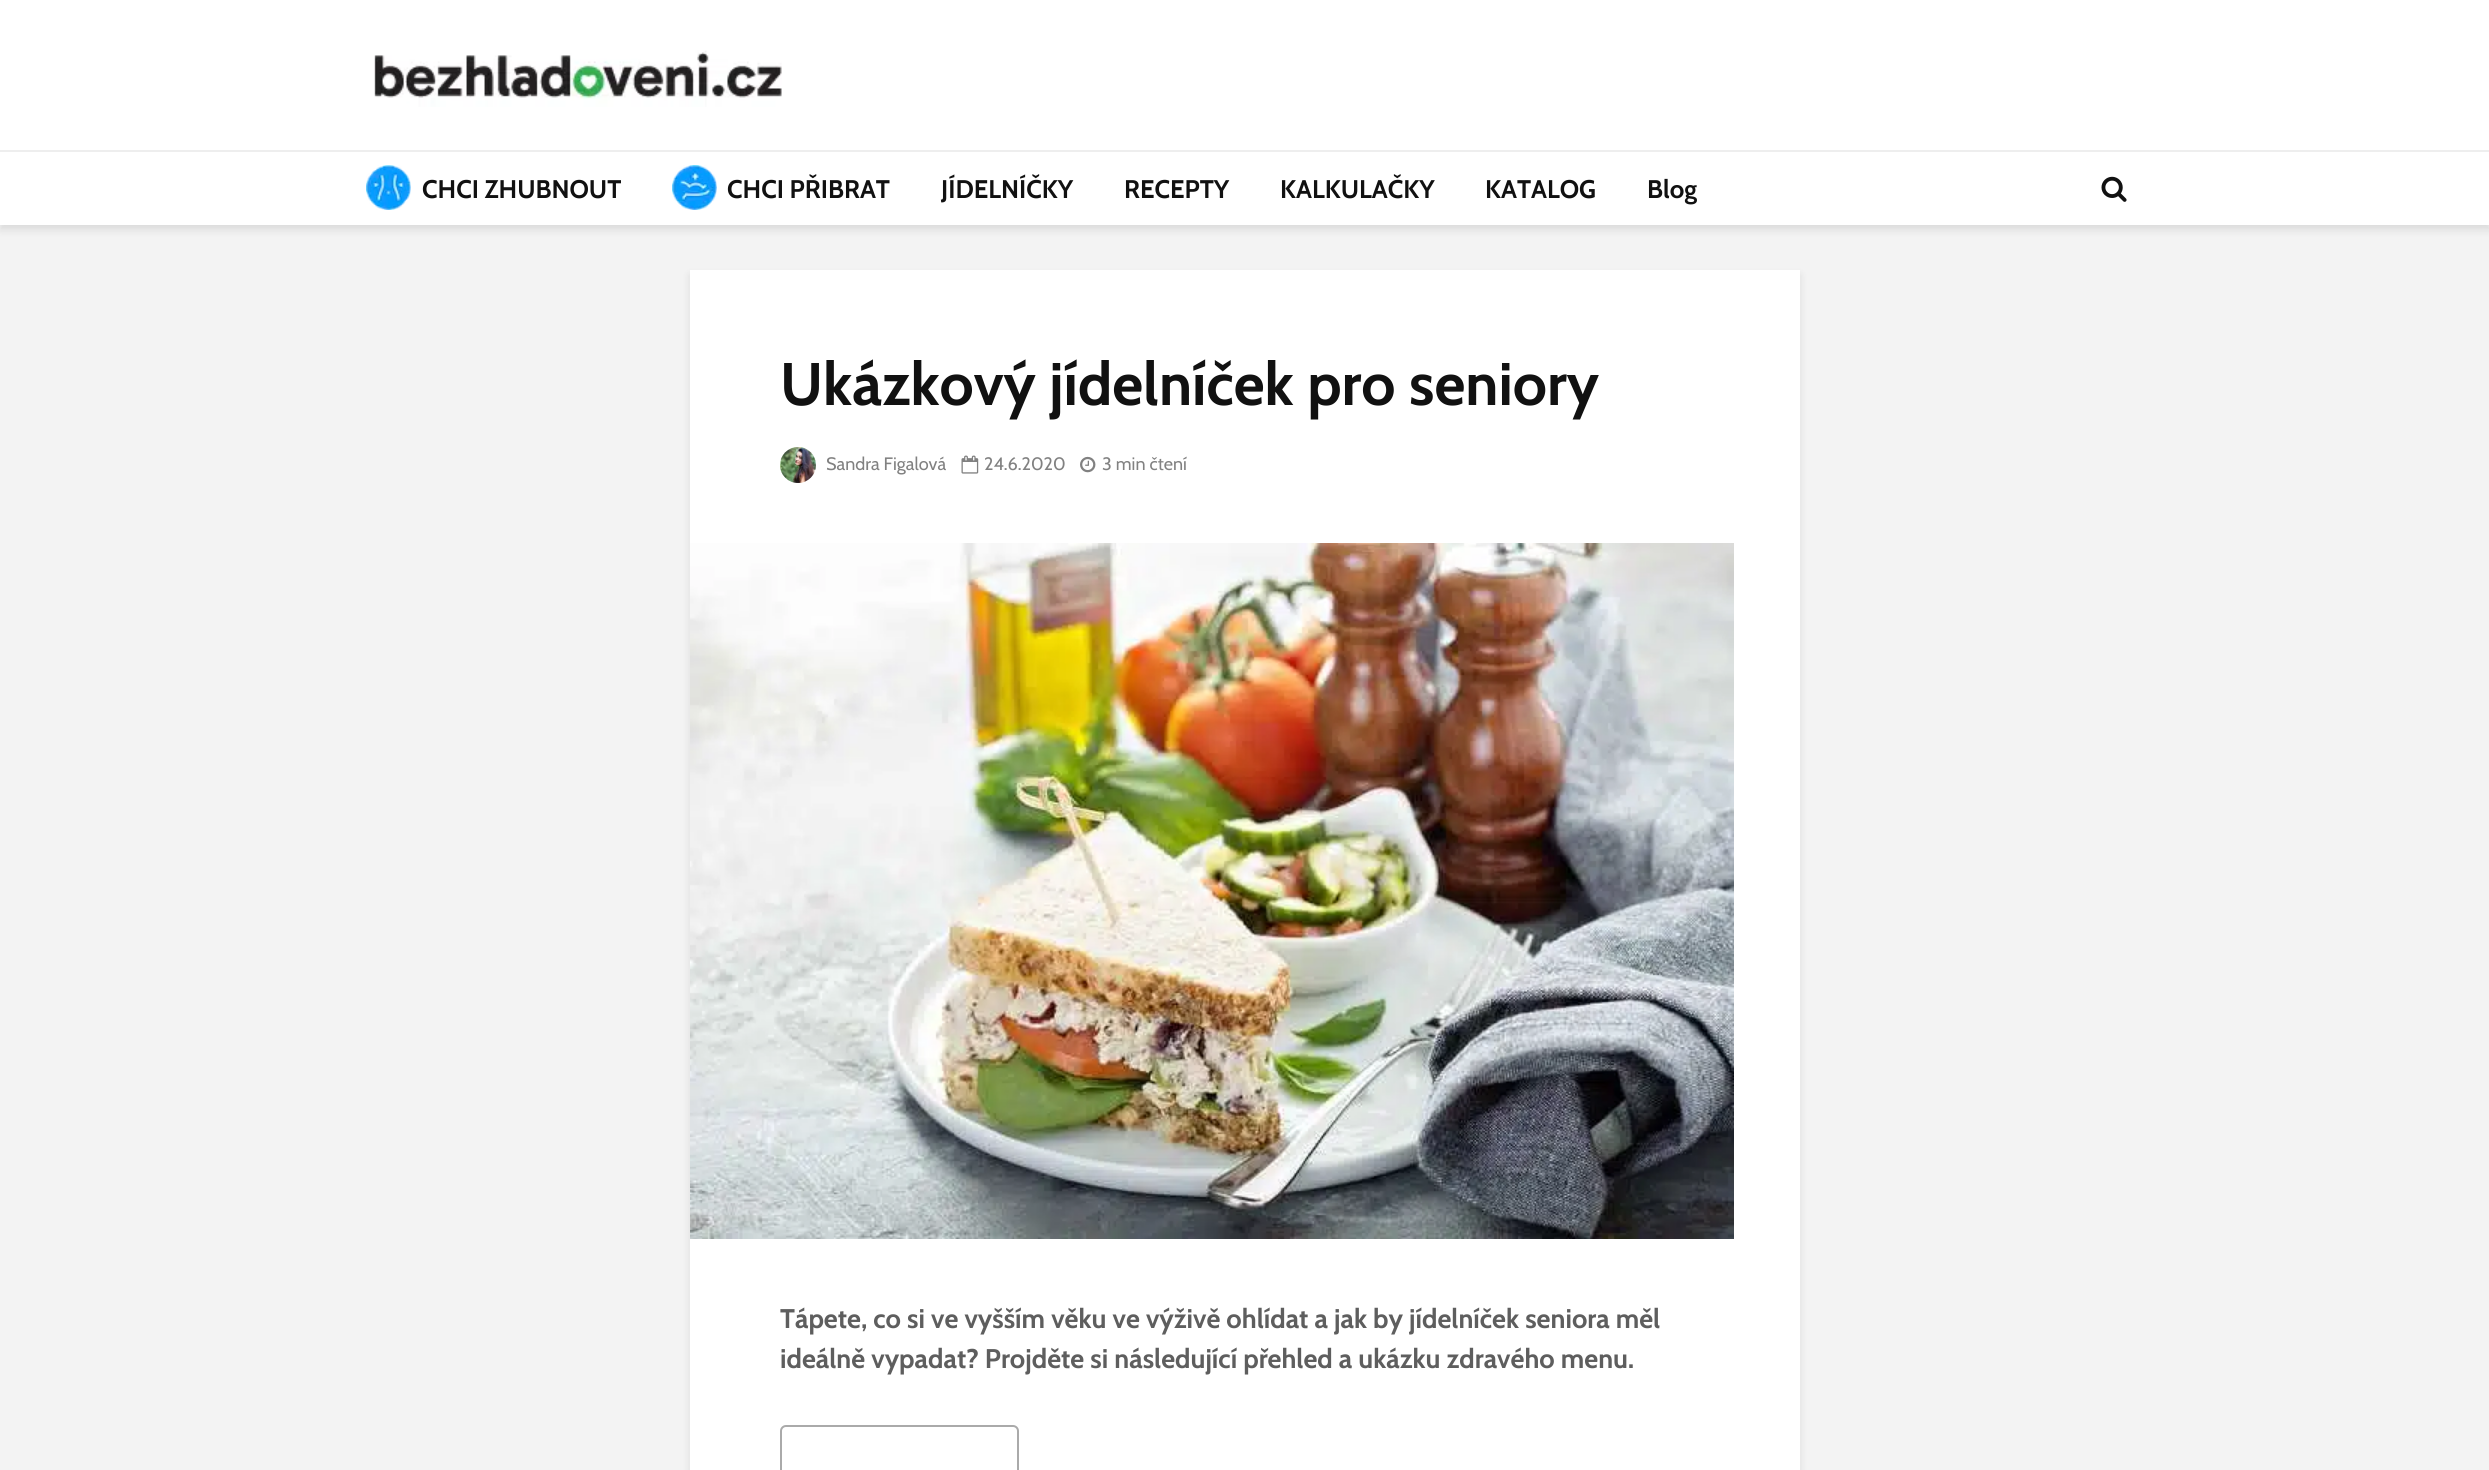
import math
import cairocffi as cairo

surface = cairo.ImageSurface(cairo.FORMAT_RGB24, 2489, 1470)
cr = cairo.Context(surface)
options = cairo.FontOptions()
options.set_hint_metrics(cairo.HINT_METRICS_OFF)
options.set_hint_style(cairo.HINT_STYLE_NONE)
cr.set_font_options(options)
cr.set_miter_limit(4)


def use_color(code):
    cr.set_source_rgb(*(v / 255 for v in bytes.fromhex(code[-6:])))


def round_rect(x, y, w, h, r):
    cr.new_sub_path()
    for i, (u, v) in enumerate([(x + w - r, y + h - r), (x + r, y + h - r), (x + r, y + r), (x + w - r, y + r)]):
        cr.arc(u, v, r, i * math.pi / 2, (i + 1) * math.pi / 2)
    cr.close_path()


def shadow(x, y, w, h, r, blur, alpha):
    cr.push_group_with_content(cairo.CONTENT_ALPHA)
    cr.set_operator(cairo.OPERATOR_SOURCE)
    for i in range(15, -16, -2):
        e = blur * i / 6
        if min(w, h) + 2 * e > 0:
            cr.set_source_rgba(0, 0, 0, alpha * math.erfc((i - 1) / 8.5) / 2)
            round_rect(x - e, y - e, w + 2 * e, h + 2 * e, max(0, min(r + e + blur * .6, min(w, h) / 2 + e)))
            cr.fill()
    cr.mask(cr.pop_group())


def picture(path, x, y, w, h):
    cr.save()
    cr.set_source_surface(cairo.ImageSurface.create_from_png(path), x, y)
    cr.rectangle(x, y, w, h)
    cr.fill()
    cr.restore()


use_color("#f3f3f3")
cr.paint()
use_color("#000101")
shadow(0, 5, 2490, 225, 0, 4, 0.1)
use_color("#ffffff")
cr.rectangle(0, 0, 2489, 150)
cr.fill()
picture("img1.png", 374, 50, 408, 57)
cr.rectangle(0, 152, 2489, 73)
cr.fill()
use_color("#eeeeee")
cr.rectangle(0, 150, 2489, 2)
cr.fill()
picture("img2.png", 366, 165, 45, 45)
cr.select_font_face("Cabin", cairo.FONT_SLANT_NORMAL, cairo.FONT_WEIGHT_BOLD)
cr.set_font_size(25.5)
use_color("#111111")
cr.move_to(422, 198)
cr.show_text("CHCI ZHUBNOUT")
picture("img3.png", 672, 165, 45, 45)
cr.move_to(727, 198)
cr.show_text("CHCI PŘIBRAT")
cr.move_to(941, 198)
cr.show_text("JÍDELNÍČKY")
cr.move_to(1124, 198)
cr.show_text("RECEPTY")
cr.move_to(1280, 198)
cr.show_text("KALKULAČKY")
cr.move_to(1485, 198)
cr.show_text("KATALOG")
cr.move_to(1647, 198)
cr.show_text("Blog")
picture("img4.png", 2101, 176, 26, 26)
use_color("#000101")
shadow(690, 275, 1110, 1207, 0, 4, 0.1)
use_color("#ffffff")
cr.rectangle(690, 270, 1110, 1200)
cr.fill()
cr.set_font_size(60)
use_color("#111111")
cr.move_to(780, 405)
cr.show_text("Ukázkový jídelníček pro seniory")
picture("img5.png", 780, 447, 36, 36)
cr.select_font_face("Cabin")
cr.set_font_size(18)
use_color("#818181")
cr.move_to(826, 470)
cr.show_text("Sandra Figalová")
picture("img6.png", 961, 455, 18, 19)
cr.move_to(984, 470)
cr.show_text("24.6.2020")
picture("img7.png", 1080, 456, 16, 17)
cr.move_to(1102, 470)
cr.show_text("3 min čtení")
picture("img8.png", 690, 543, 1044, 696)
cr.select_font_face("Cabin", cairo.FONT_SLANT_NORMAL, cairo.FONT_WEIGHT_BOLD)
cr.set_font_size(27)
use_color("#5e5e5e")
cr.move_to(780, 1328)
cr.show_text("Tápete, co si ve vyšším věku ve výživě ohlídat a jak by jídelníček seniora měl")
cr.move_to(780, 1368)
cr.show_text("ideálně vypadat? Projděte si následující přehled a ukázku zdravého menu.")
round_rect(781, 1426, 237, 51, 5)
use_color("#aaaaaa")
cr.stroke()
surface.write_to_png("result.png")
